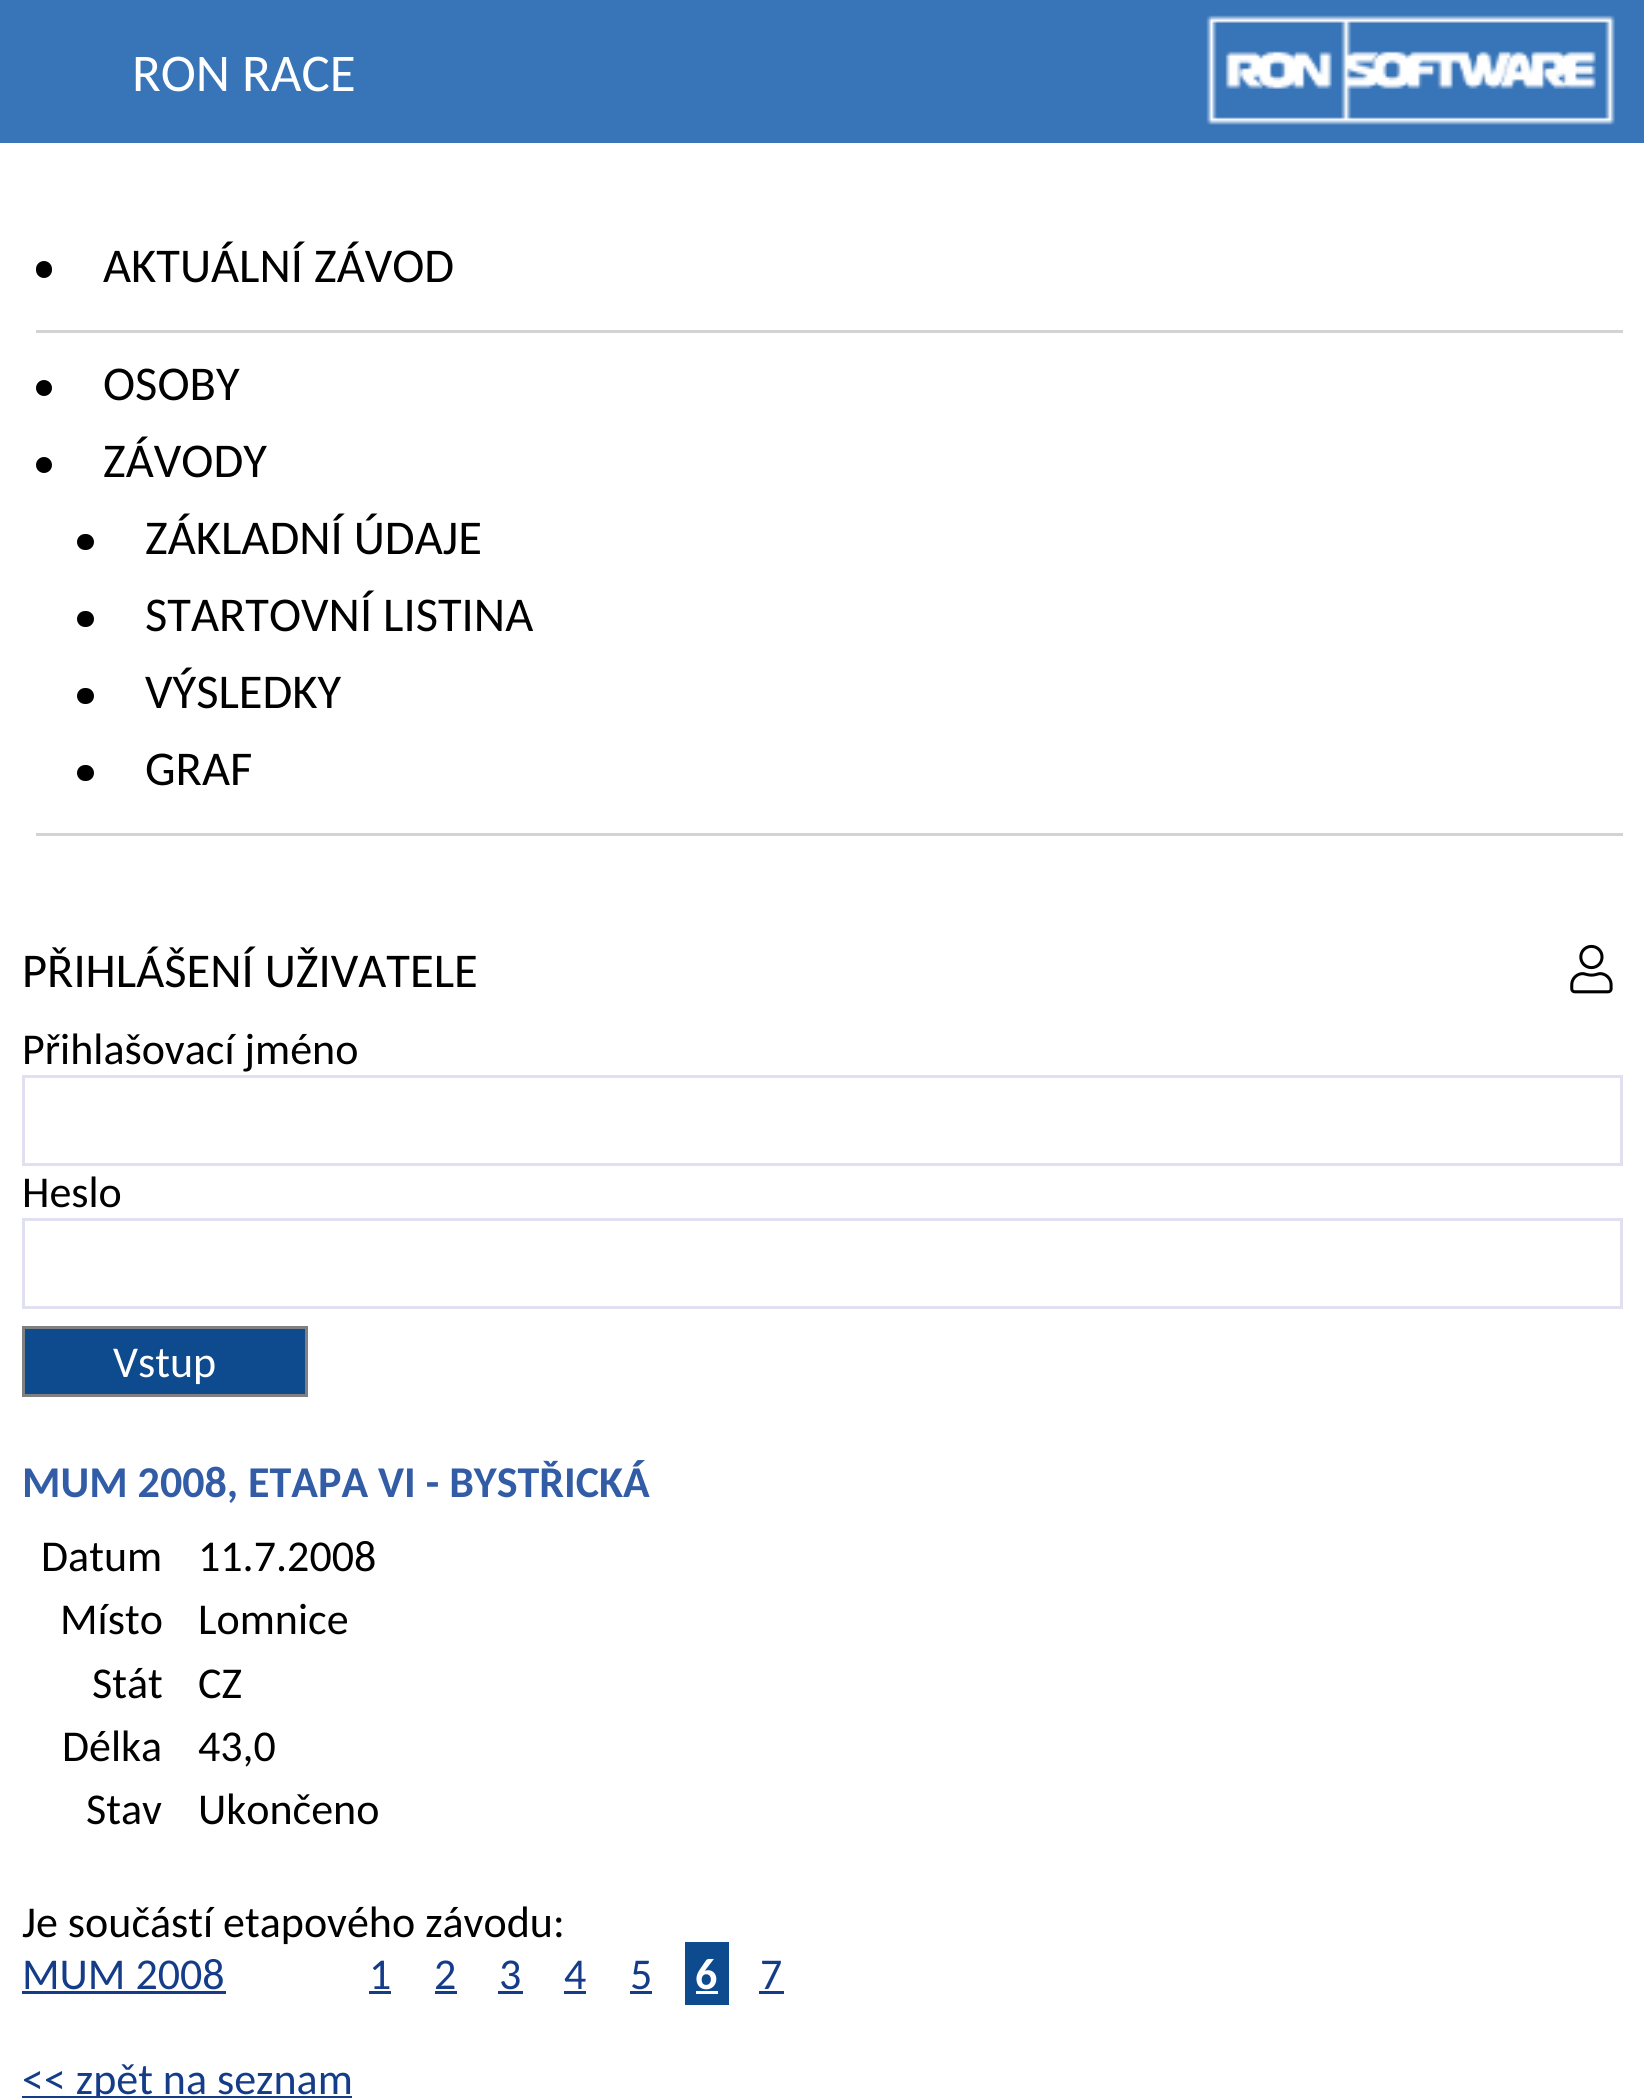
import math
import cairocffi as cairo

surface = cairo.ImageSurface(cairo.FORMAT_RGB24, 1644, 2098)
cr = cairo.Context(surface)
options = cairo.FontOptions()
options.set_hint_metrics(cairo.HINT_METRICS_OFF)
options.set_hint_style(cairo.HINT_STYLE_NONE)
cr.set_font_options(options)
cr.set_miter_limit(4)


def use_color(code):
    cr.set_source_rgb(*(v / 255 for v in bytes.fromhex(code[-6:])))


def round_rect(x, y, w, h, r):
    cr.new_sub_path()
    for i, (u, v) in enumerate([(x + w - r, y + h - r), (x + r, y + h - r), (x + r, y + r), (x + w - r, y + r)]):
        cr.arc(u, v, r, i * math.pi / 2, (i + 1) * math.pi / 2)
    cr.close_path()


def picture(path, x, y, w, h):
    cr.save()
    cr.set_source_surface(cairo.ImageSurface.create_from_png(path), x, y)
    cr.rectangle(x, y, w, h)
    cr.fill()
    cr.restore()


use_color("#ffffff")
cr.paint()
use_color("#3774b8")
cr.rectangle(0, 0, 1644, 143)
cr.fill()
cr.select_font_face("Carlito")
cr.set_font_size(53)
use_color("#ffffff")
cr.move_to(132, 91)
cr.show_text("RON RACE")
picture("img1.png", 1206, 15, 409, 110)
use_color("#000000")
round_rect(36, 261, 16, 17, 8)
cr.fill()
cr.set_font_size(48.5)
cr.move_to(103, 282)
cr.show_text("AKTUÁLNÍ ZÁVOD")
use_color("#d3d3d3")
cr.rectangle(36, 330, 1587, 3)
cr.fill()
use_color("#000000")
cr.arc(44, 388, 8, 0, 2 * math.pi)
cr.fill()
cr.move_to(103, 400)
cr.show_text("OSOBY")
cr.new_path()
cr.arc(44, 465, 8, 0, 2 * math.pi)
cr.fill()
cr.move_to(103, 477)
cr.show_text("ZÁVODY")
round_rect(77, 534, 17, 16, 8)
cr.fill()
cr.move_to(145, 554)
cr.show_text("ZÁKLADNÍ ÚDAJE")
round_rect(77, 611, 17, 16, 8)
cr.fill()
cr.move_to(145, 631)
cr.show_text("STARTOVNÍ LISTINA")
round_rect(77, 688, 17, 16, 8)
cr.fill()
cr.move_to(145, 708)
cr.show_text("VÝSLEDKY")
round_rect(77, 765, 17, 16, 8)
cr.fill()
cr.move_to(145, 785)
cr.show_text("GRAF")
use_color("#d3d3d3")
cr.rectangle(36, 833, 1587, 3)
cr.fill()
use_color("#000000")
cr.move_to(22, 987)
cr.show_text("PŘIHLÁŠENÍ UŽIVATELE")
picture("img2.png", 1570, 944, 43, 50)
cr.set_font_size(44)
cr.move_to(22, 1064)
cr.show_text("Přihlašovací jméno")
cr.rectangle(23.5, 1076.5, 1598, 88)
use_color("#e0e0f0")
cr.set_line_width(3)
cr.stroke()
use_color("#000000")
cr.move_to(22, 1207)
cr.show_text("Heslo")
cr.rectangle(23.5, 1219.5, 1598, 88)
use_color("#e0e0f0")
cr.stroke()
use_color("#0d4a8e")
cr.rectangle(23.5, 1327.5, 283, 68)
cr.fill_preserve()
use_color("#808080")
cr.stroke()
use_color("#ffffff")
cr.move_to(113, 1377)
cr.show_text("Vstup")
cr.select_font_face("Carlito", cairo.FONT_SLANT_NORMAL, cairo.FONT_WEIGHT_BOLD)
use_color("#335ca6")
cr.move_to(22, 1497)
cr.show_text("MUM 2008, ETAPA VI - BYSTŘICKÁ")
cr.select_font_face("Carlito")
use_color("#000000")
cr.move_to(41, 1571)
cr.show_text("Datum")
cr.move_to(198, 1571)
cr.show_text("11.7.2008")
cr.move_to(60, 1634)
cr.show_text("Místo")
cr.move_to(198, 1634)
cr.show_text("Lomnice")
cr.move_to(92, 1698)
cr.show_text("Stát")
cr.move_to(198, 1698)
cr.show_text("CZ")
cr.move_to(62, 1761)
cr.show_text("Délka")
cr.move_to(198, 1761)
cr.show_text("43,0")
cr.move_to(86, 1824)
cr.show_text("Stav")
cr.move_to(198, 1824)
cr.show_text("Ukončeno")
cr.move_to(22, 1937)
cr.show_text("Je součástí etapového závodu:")
use_color("#153c88")
cr.move_to(22, 1989)
cr.show_text("MUM 2008")
cr.rectangle(22, 1991, 204, 3)
cr.fill()
cr.move_to(369, 1989)
cr.show_text("1")
cr.rectangle(369, 1991, 22, 3)
cr.fill()
cr.move_to(434, 1989)
cr.show_text("2")
cr.rectangle(435, 1991, 22, 3)
cr.fill()
cr.move_to(499, 1989)
cr.show_text("3")
cr.rectangle(498, 1991, 25, 3)
cr.fill()
cr.move_to(564, 1989)
cr.show_text("4")
cr.rectangle(564, 1991, 22, 3)
cr.fill()
cr.move_to(630, 1989)
cr.show_text("5")
cr.rectangle(630, 1991, 22, 3)
cr.fill()
use_color("#0d4a8e")
cr.rectangle(685, 1942, 44, 63)
cr.fill()
cr.select_font_face("Carlito", cairo.FONT_SLANT_NORMAL, cairo.FONT_WEIGHT_BOLD)
use_color("#ffffff")
cr.move_to(695, 1989)
cr.show_text("6")
cr.rectangle(696, 1991, 22, 3)
cr.fill()
cr.select_font_face("Carlito")
use_color("#153c88")
cr.move_to(760, 1989)
cr.show_text("7")
cr.rectangle(759, 1991, 25, 3)
cr.fill()
cr.rectangle(22, 2096, 330, 2)
cr.fill()
cr.move_to(22, 2094)
cr.show_text("<< zpět na seznam")
surface.write_to_png("result.png")
